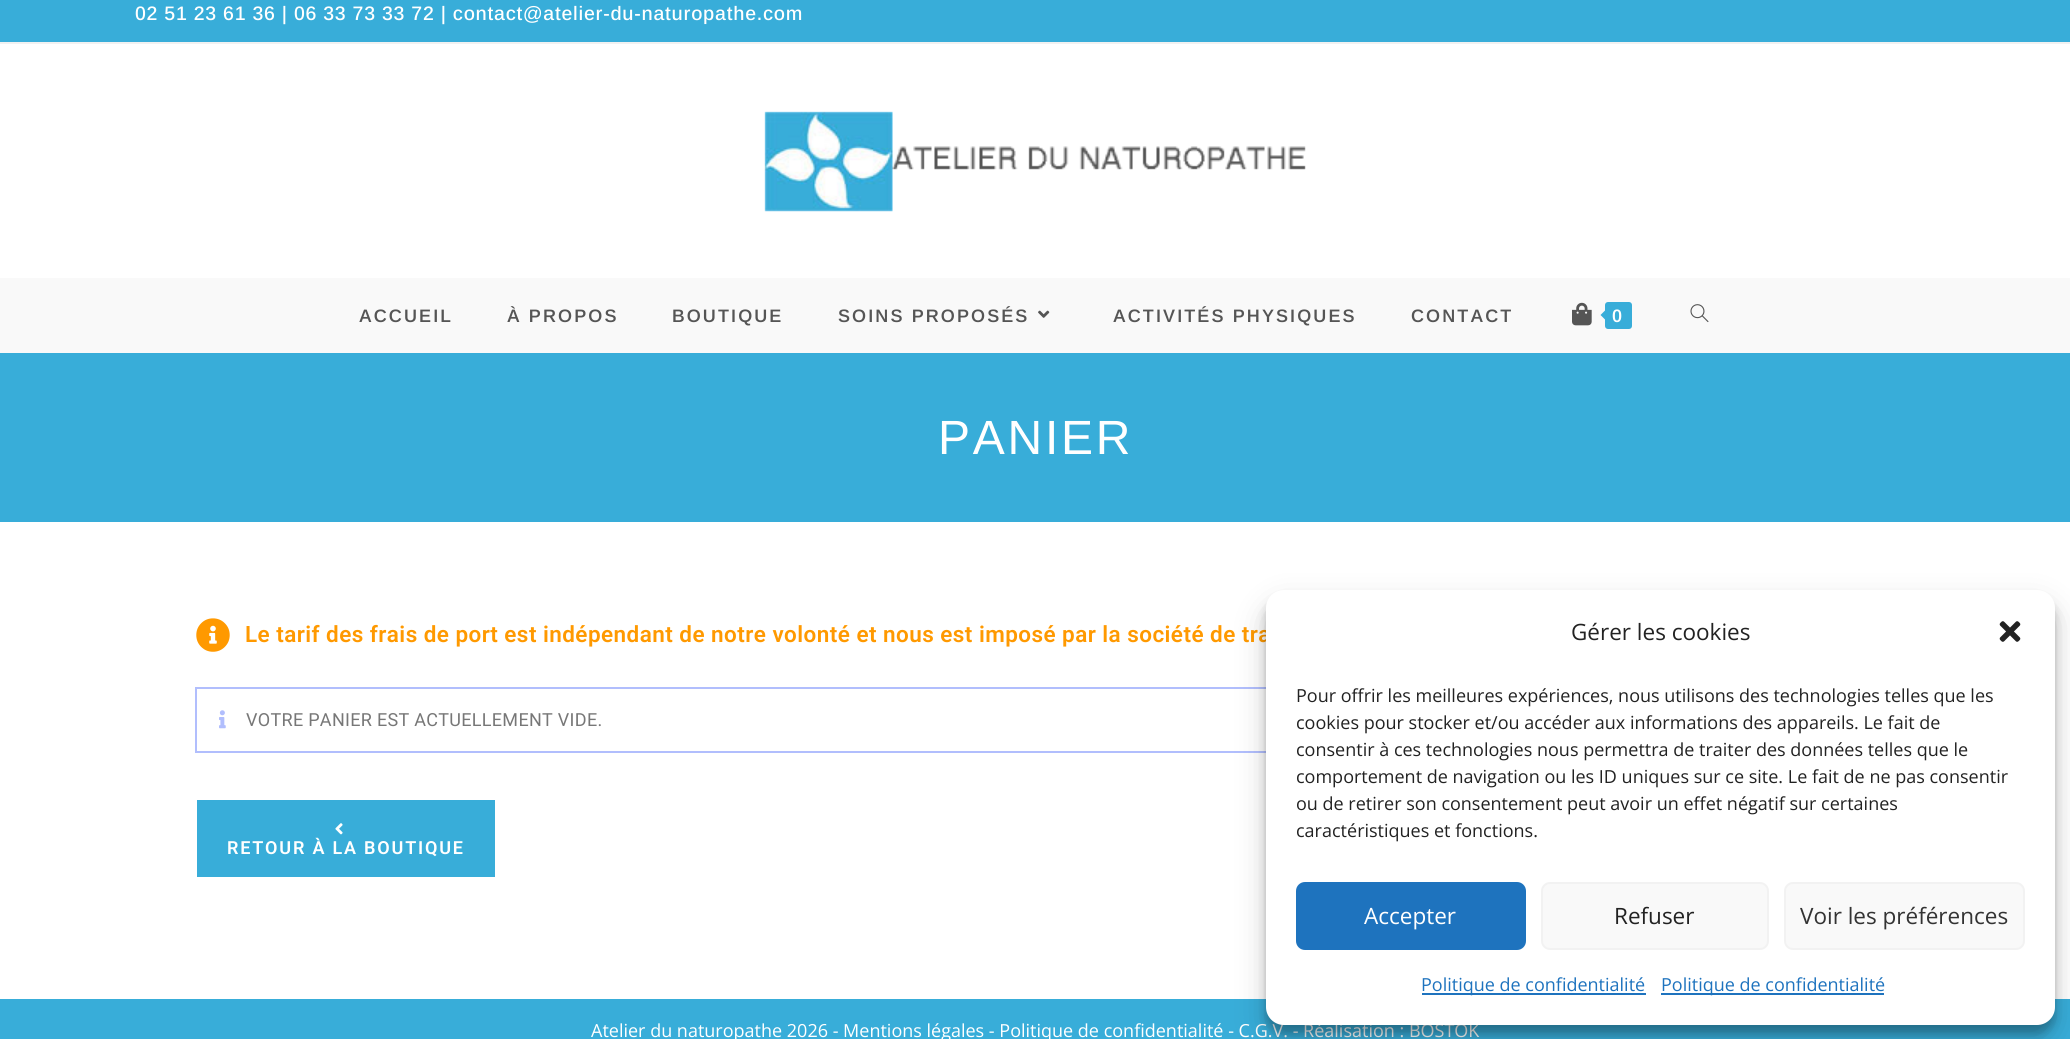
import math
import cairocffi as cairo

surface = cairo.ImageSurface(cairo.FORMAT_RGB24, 2070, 1039)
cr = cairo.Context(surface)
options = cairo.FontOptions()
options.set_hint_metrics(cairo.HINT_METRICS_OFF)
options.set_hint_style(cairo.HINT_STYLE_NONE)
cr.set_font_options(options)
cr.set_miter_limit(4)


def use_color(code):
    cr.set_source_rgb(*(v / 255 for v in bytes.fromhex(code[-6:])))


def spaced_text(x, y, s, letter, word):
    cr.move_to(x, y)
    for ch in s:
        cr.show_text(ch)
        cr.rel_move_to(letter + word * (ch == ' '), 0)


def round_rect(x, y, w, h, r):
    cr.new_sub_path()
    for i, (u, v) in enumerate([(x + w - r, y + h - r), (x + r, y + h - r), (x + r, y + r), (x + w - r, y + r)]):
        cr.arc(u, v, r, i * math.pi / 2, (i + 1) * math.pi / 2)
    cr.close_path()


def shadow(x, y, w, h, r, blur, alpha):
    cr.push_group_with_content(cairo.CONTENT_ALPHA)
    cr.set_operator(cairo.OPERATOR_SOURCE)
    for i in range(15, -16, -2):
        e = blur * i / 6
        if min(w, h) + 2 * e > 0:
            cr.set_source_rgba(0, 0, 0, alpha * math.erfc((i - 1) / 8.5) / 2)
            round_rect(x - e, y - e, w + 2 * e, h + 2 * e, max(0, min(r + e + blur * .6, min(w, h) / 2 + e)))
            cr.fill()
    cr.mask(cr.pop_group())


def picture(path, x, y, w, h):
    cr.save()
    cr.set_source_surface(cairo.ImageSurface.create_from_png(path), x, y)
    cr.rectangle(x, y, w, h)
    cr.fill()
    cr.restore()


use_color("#ffffff")
cr.paint()
use_color("#38add9")
cr.rectangle(0, 0, 2070, 42)
cr.fill()
use_color("#f1f1f1")
cr.rectangle(0, 42, 2070, 2)
cr.fill()
cr.select_font_face("Arimo Medium")
cr.set_font_size(19.5)
use_color("#ffffff")
spaced_text(135, 20, "02 51 23 61 36 | 06 33 73 33 72 | contact@atelier-du-naturopathe.com", 0.75, 0)
picture("img1.png", 764, 111, 542, 101)
use_color("#f9f9f9")
cr.rectangle(0, 278, 2070, 75)
cr.fill()
cr.select_font_face("Arimo SemiBold")
cr.set_font_size(18)
use_color("#555555")
spaced_text(359, 322, "ACCUEIL", 2.1, 0)
spaced_text(507, 322, "À PROPOS", 2.1, 0)
spaced_text(672, 322, "BOUTIQUE", 2.1, 0)
spaced_text(838, 322, "SOINS PROPOSÉS", 2.1, 0)
picture("img2.png", 1038, 310, 12, 8)
spaced_text(1113, 322, "ACTIVITÉS PHYSIQUES", 2.1, 0)
spaced_text(1411, 322, "CONTACT", 2.1, 0)
picture("img3.png", 1572, 302, 20, 24)
use_color("#38add9")
round_rect(1605, 302, 27, 27, 3)
cr.fill()
cr.new_path()
cr.move_to(1608, 307.5)
cr.line_to(1608, 322.5)
cr.line_to(1600.5, 315)
cr.close_path()
cr.fill()
use_color("#ffffff")
spaced_text(1612, 322, "0", 2.1, 0)
picture("img4.png", 1690, 304, 19, 19)
use_color("#38add9")
cr.rectangle(0, 353, 2070, 169)
cr.fill()
cr.select_font_face("Arimo")
cr.set_font_size(48)
use_color("#ffffff")
spaced_text(938, 454, "PANIER", 2.75, 0)
picture("img5.png", 196, 618, 34, 34)
cr.select_font_face("Roboto SemiBold")
cr.set_font_size(22.5)
use_color("#ff9900")
spaced_text(245, 642, "Le tarif des frais de port est indépendant de notre volonté et nous est imposé par la société de tra", 0.45, 0)
cr.rectangle(196, 688, 1678, 64)
use_color("#b1befd")
cr.stroke()
picture("img6.png", 219, 710, 7, 19)
cr.select_font_face("Roboto")
cr.set_font_size(18)
use_color("#777777")
spaced_text(246, 726, "VOTRE PANIER EST ACTUELLEMENT VIDE.", 0.3, 0)
use_color("#38add9")
cr.rectangle(197, 800, 298, 77)
cr.fill()
picture("img7.png", 335, 823, 8, 12)
cr.select_font_face("Roboto SemiBold")
use_color("#ffffff")
spaced_text(227, 854, "RETOUR À LA BOUTIQUE", 1.8, 0)
use_color("#38add9")
cr.rectangle(0, 999, 2070, 40)
cr.fill()
cr.select_font_face("Open Sans")
use_color("#ffffff")
cr.move_to(591, 1037)
cr.show_text("Atelier du naturopathe 2026 - Mentions légales - Politique de confidentialité - C.G.V. - Réalisation : BOSTOK")
use_color("#000000")
shadow(1266, 599, 789, 435, 18, 4.5, 0.23)
shadow(1266, 605, 789, 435, 18, 15, 0.19)
use_color("#ffffff")
round_rect(1266, 590, 789, 435, 18)
cr.fill()
cr.set_font_size(22.5)
use_color("#222222")
cr.move_to(1571, 640)
cr.show_text("Gérer les cookies")
picture("img8.png", 1999, 621, 22, 21)
cr.set_font_size(18)
cr.move_to(1296, 702)
cr.show_text("Pour offrir les meilleures expériences, nous utilisons des technologies telles que les")
cr.move_to(1296, 729)
cr.show_text("cookies pour stocker et/ou accéder aux informations des appareils. Le fait de")
cr.move_to(1296, 756)
cr.show_text("consentir à ces technologies nous permettra de traiter des données telles que le")
cr.move_to(1296, 783)
cr.show_text("comportement de navigation ou les ID uniques sur ce site. Le fait de ne pas consentir")
cr.move_to(1296, 810)
cr.show_text("ou de retirer son consentement peut avoir un effet négatif sur certaines")
cr.move_to(1296, 837)
cr.show_text("caractéristiques et fonctions.")
use_color("#1e73be")
round_rect(1297, 883, 228, 66, 8)
cr.fill_preserve()
cr.stroke()
cr.set_font_size(22.5)
use_color("#ffffff")
cr.move_to(1364, 924)
cr.show_text("Accepter")
use_color("#f9f9f9")
round_rect(1542, 883, 226, 66, 8)
cr.fill_preserve()
use_color("#f2f2f2")
cr.stroke()
use_color("#222222")
cr.move_to(1614, 924)
cr.show_text("Refuser")
use_color("#f9f9f9")
round_rect(1785, 883, 239, 66, 8)
cr.fill_preserve()
use_color("#f2f2f2")
cr.stroke()
use_color("#333333")
cr.move_to(1800, 924)
cr.show_text("Voir les préférences")
use_color("#1e73be")
cr.rectangle(1422, 993, 224, 2)
cr.fill()
cr.set_font_size(18)
cr.move_to(1421, 991)
cr.show_text("Politique de confidentialité")
cr.rectangle(1661, 993, 223, 2)
cr.fill()
cr.move_to(1661, 991)
cr.show_text("Politique de confidentialité")
surface.write_to_png("result.png")
